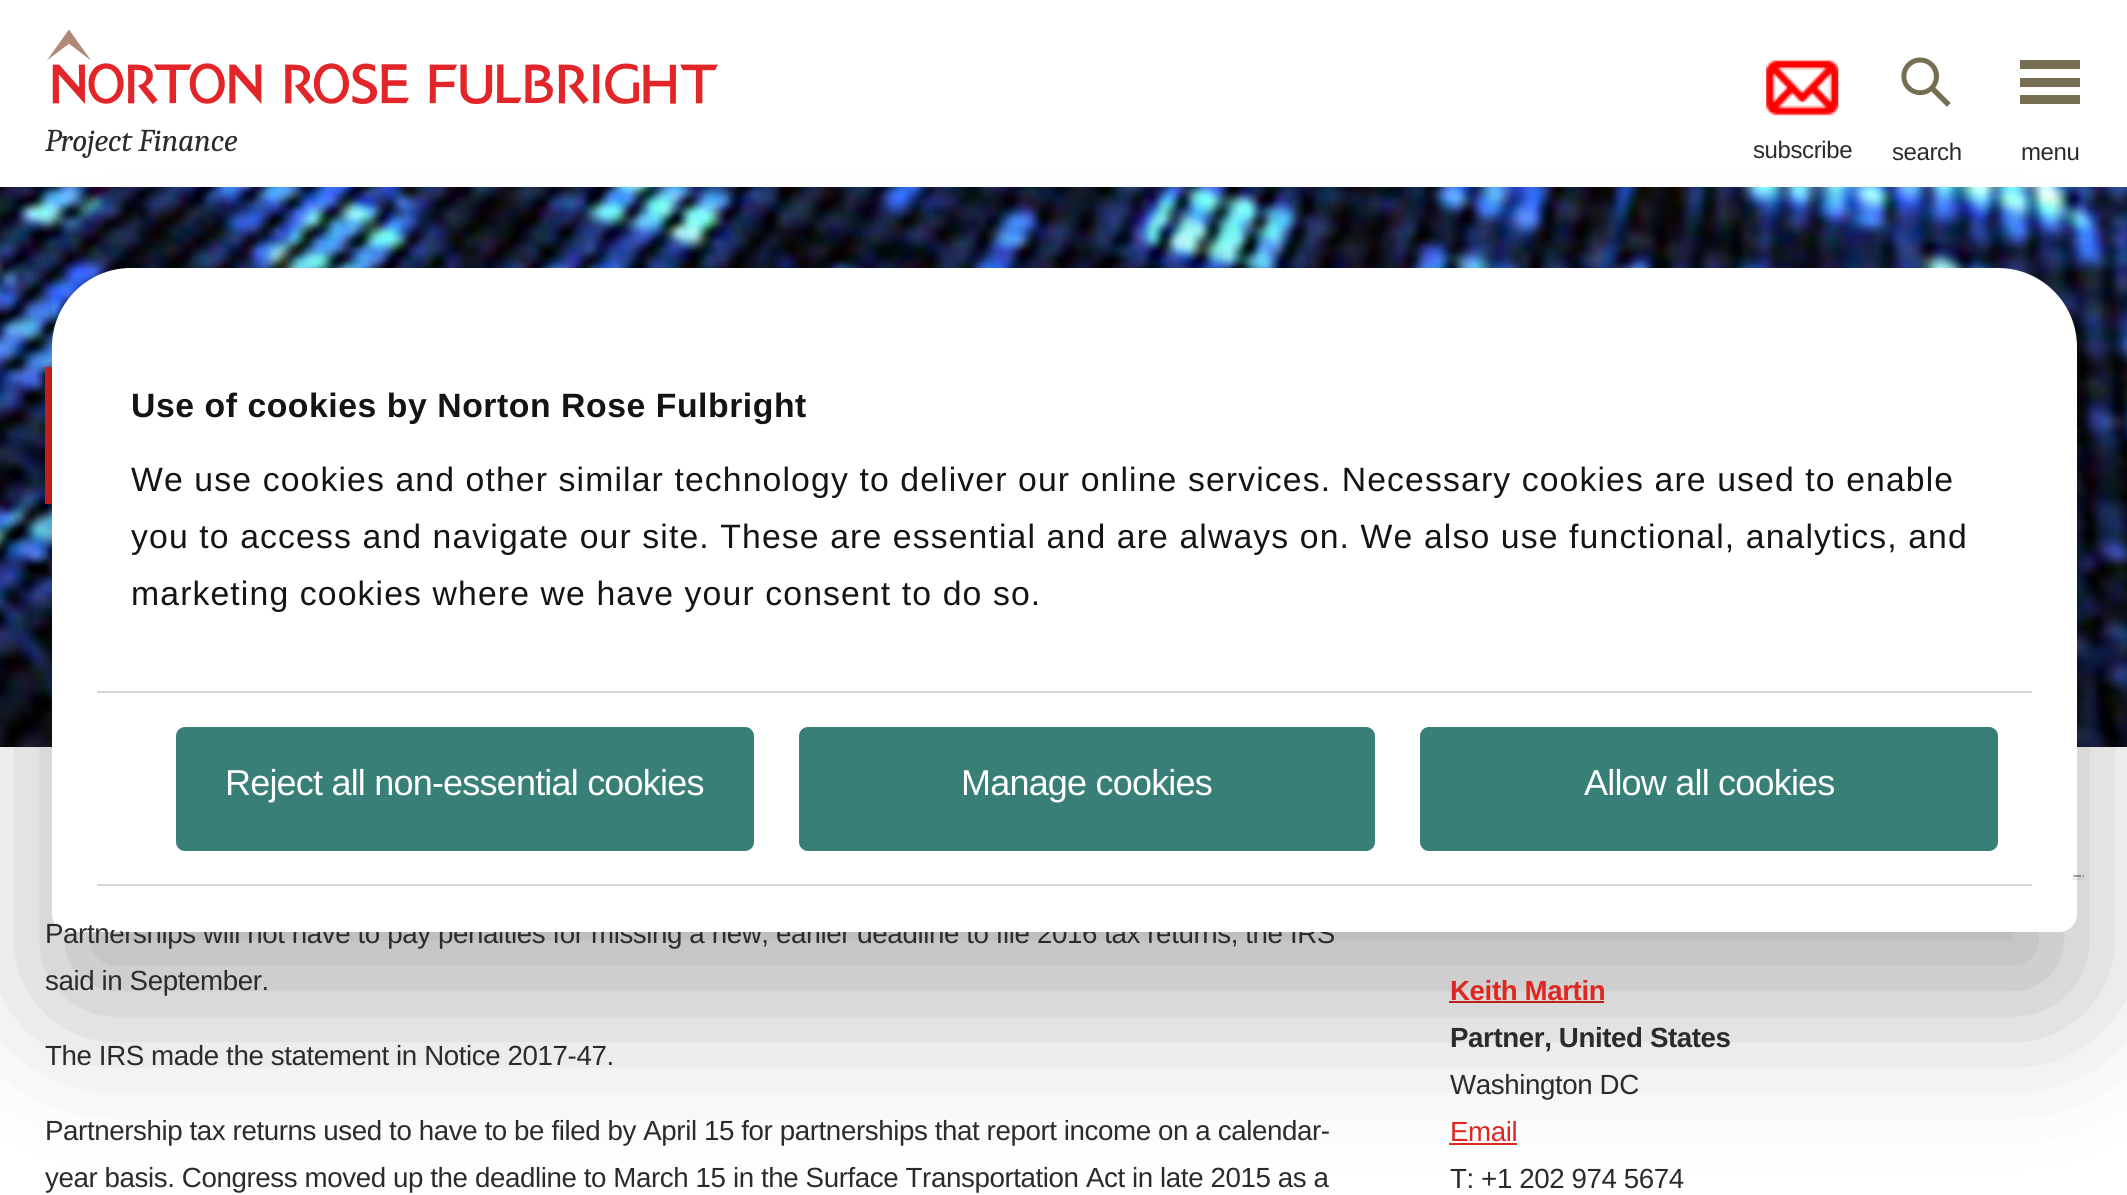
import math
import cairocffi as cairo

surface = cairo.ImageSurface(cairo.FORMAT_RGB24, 2127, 1195)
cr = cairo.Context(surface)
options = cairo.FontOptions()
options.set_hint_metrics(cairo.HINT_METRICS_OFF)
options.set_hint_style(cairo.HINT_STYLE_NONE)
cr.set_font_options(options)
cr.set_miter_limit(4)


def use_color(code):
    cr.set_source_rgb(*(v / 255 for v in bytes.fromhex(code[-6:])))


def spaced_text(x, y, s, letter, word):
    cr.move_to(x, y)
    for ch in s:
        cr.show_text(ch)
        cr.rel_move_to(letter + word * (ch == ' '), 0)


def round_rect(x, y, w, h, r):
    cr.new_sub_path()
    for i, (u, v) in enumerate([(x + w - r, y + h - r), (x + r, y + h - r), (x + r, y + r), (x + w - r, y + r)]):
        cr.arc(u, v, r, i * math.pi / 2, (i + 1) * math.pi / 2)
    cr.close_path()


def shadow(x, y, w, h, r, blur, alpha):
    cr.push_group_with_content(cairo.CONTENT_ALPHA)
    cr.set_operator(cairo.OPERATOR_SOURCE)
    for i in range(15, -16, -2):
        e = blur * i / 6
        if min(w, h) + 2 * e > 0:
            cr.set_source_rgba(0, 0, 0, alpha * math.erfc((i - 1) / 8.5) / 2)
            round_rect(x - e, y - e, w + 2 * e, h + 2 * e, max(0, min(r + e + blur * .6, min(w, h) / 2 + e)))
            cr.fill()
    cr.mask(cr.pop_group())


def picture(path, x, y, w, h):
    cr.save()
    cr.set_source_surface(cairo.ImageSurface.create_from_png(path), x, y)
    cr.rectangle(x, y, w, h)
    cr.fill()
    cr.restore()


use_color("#ffffff")
cr.paint()
picture("img1.png", 47, 29, 671, 75)
cr.select_font_face("Caladea", cairo.FONT_SLANT_ITALIC)
cr.set_font_size(31.75)
use_color("#2b2b2b")
spaced_text(45, 151, "Project Finance", -0.4, 0)
picture("img2.png", 1766, 60, 73, 56)
cr.select_font_face("Liberation Sans")
cr.set_font_size(24)
spaced_text(1753, 158, "subscribe", -0.4, 0)
picture("img3.png", 1901, 57, 50, 50)
spaced_text(1892, 160, "search", -0.4, 0)
use_color("#756e52")
cr.new_path()
cr.move_to(2080, 69)
cr.line_to(2020, 69)
cr.line_to(2020, 60)
cr.line_to(2080, 60)
cr.close_path()
cr.move_to(2080, 78)
cr.line_to(2020, 78)
cr.line_to(2020, 87)
cr.line_to(2080, 87)
cr.close_path()
cr.move_to(2080, 95)
cr.line_to(2020, 95)
cr.line_to(2020, 104)
cr.line_to(2080, 104)
cr.close_path()
cr.fill()
use_color("#2b2b2b")
spaced_text(2021, 160, "menu", -0.4, 0)
picture("img4.png", 0, 187, 2127, 560)
use_color("#dd2720")
cr.rectangle(45, 367, 7, 137)
cr.fill()
use_color("#9f9f9f")
cr.rectangle(2073, 875, 11, 2)
cr.fill()
use_color("#eeeeee")
cr.rectangle(2081, 875, 2, 5)
cr.fill()
cr.rectangle(2072, 878, 12, 2)
cr.fill()
use_color("#dd2720")
cr.rectangle(1449, 1001, 155, 2)
cr.fill()
cr.rectangle(1449, 1143, 68, 2)
cr.fill()
cr.save()
cr.set_fill_rule(cairo.FILL_RULE_EVEN_ODD)
cr.new_path()
cr.move_to(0, 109)
cr.line_to(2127, 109)
cr.line_to(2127, 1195)
cr.line_to(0, 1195)
cr.close_path()
cr.move_to(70, 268)
cr.line_to(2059, 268)
cr.curve_to(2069, 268, 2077, 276, 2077, 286)
cr.line_to(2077, 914)
cr.curve_to(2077, 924, 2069, 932, 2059, 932)
cr.line_to(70, 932)
cr.curve_to(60, 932, 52, 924, 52, 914)
cr.line_to(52, 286)
cr.curve_to(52, 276, 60, 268, 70, 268)
cr.close_path()
cr.clip()
use_color("#000000")
shadow(52, 340, 2025, 664, 18, 76.5, 0.3)
cr.restore()
cr.set_font_size(27.7)
use_color("#2b2b2b")
spaced_text(45, 943, "Partnerships will not have to pay penalties for missing a new, earlier deadline to file 2016 tax returns, the IRS", -0.4, 0)
use_color("#ffffff")
round_rect(52, 268, 2025, 664, 79)
cr.fill()
use_color("#d6d6d6")
cr.rectangle(97, 691, 1935, 2)
cr.fill()
cr.select_font_face("Liberation Sans", cairo.FONT_SLANT_NORMAL, cairo.FONT_WEIGHT_BOLD)
cr.set_font_size(33.75)
use_color("#141414")
spaced_text(131, 417, "Use of cookies by Norton Rose Fulbright", 0.55, 0)
cr.select_font_face("Liberation Sans")
spaced_text(131, 491, "We use cookies and other similar technology to deliver our online services. Necessary cookies are used to enable", 1.12, 0)
spaced_text(131, 548, "you to access and navigate our site. These are essential and are always on. We also use functional, analytics, and", 1.12, 0)
spaced_text(131, 605, "marketing cookies where we have your consent to do so.", 1.12, 0)
use_color("#d6d6d6")
cr.rectangle(97, 884, 1935, 2)
cr.fill()
use_color("#388077")
round_rect(176, 727, 578, 124, 9)
cr.fill()
cr.set_font_size(36)
use_color("#ffffff")
spaced_text(225, 795, "Reject all non-essential cookies", -0.8, 0)
use_color("#388077")
round_rect(799, 727, 576, 124, 9)
cr.fill()
use_color("#ffffff")
spaced_text(961, 795, "Manage cookies", -0.8, 0)
use_color("#388077")
round_rect(1420, 727, 578, 124, 9)
cr.fill()
use_color("#ffffff")
spaced_text(1584, 795, "Allow all cookies", -0.8, 0)
cr.set_font_size(27.7)
use_color("#2b2b2b")
spaced_text(45, 990, "said in September.", -0.4, 0)
spaced_text(45, 1065, "The IRS made the statement in Notice 2017-47.", -0.4, 0)
spaced_text(45, 1140, "Partnership tax returns used to have to be filed by April 15 for partnerships that report income on a calendar-", -0.4, 0)
spaced_text(45, 1187, "year basis. Congress moved up the deadline to March 15 in the Surface Transportation Act in late 2015 as a", -0.4, 0)
cr.select_font_face("Liberation Sans", cairo.FONT_SLANT_NORMAL, cairo.FONT_WEIGHT_BOLD)
use_color("#dd2720")
spaced_text(1450, 1000, "Keith Martin", -0.4, 0)
use_color("#2b2b2b")
spaced_text(1450, 1047, "Partner, United States", -0.4, 0)
cr.select_font_face("Liberation Sans")
spaced_text(1450, 1094, "Washington DC", -0.4, 0)
use_color("#dd2720")
spaced_text(1450, 1141, "Email", -0.4, 0)
use_color("#2b2b2b")
spaced_text(1450, 1188, "T: +1 202 974 5674", -0.4, 0)
surface.write_to_png("result.png")
